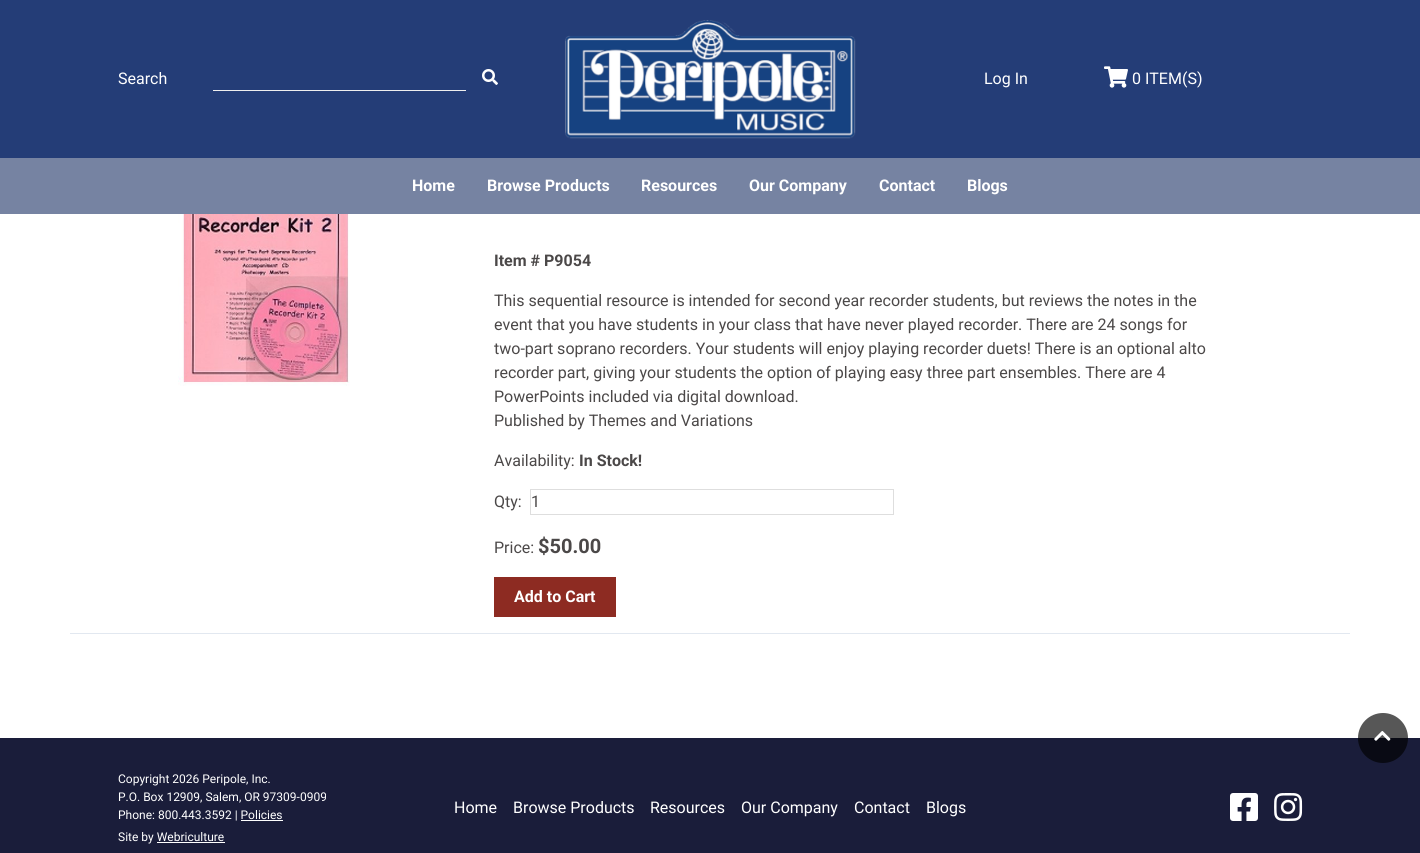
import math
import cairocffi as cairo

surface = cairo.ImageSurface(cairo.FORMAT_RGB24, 1420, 853)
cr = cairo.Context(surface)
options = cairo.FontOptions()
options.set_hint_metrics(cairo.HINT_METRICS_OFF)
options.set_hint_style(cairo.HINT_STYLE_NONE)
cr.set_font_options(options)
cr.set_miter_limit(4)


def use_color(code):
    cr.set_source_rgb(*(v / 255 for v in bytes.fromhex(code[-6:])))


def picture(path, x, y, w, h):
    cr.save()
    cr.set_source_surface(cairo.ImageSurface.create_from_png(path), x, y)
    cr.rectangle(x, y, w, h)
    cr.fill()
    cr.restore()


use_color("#ffffff")
cr.paint()
use_color("#243d77")
cr.rectangle(0, 0, 1420, 158)
cr.fill()
cr.select_font_face("Roboto")
cr.set_font_size(16)
use_color("#ffffff")
cr.move_to(118, 84)
cr.show_text("Search")
picture("img1.png", 482, 69, 16, 16)
use_color("#efefef")
cr.rectangle(213, 90, 253, 1)
cr.fill()
picture("img2.png", 565, 20, 291, 119)
use_color("#ffffff")
cr.move_to(984, 84)
cr.show_text("Log In")
picture("img3.png", 1104, 66, 24, 22)
cr.move_to(1132, 84)
cr.show_text("0 ITEM(S)")
use_color("#7683a2")
cr.rectangle(0, 158, 1420, 56)
cr.fill()
cr.select_font_face("Roboto", cairo.FONT_SLANT_NORMAL, cairo.FONT_WEIGHT_BOLD)
use_color("#ffffff")
cr.move_to(412, 191)
cr.show_text("Home")
cr.move_to(487, 191)
cr.show_text("Browse Products")
cr.move_to(641, 191)
cr.show_text("Resources")
cr.move_to(749, 191)
cr.show_text("Our Company")
cr.move_to(879, 191)
cr.show_text("Contact")
cr.move_to(967, 191)
cr.show_text("Blogs")
picture("img4.png", 178, 214, 172, 172)
use_color("#4b4848")
cr.move_to(494, 266)
cr.show_text("Item # P9054")
cr.select_font_face("Roboto")
cr.move_to(494, 306)
cr.show_text("This sequential resource is intended for second year recorder students, but reviews the notes in the")
cr.move_to(494, 330)
cr.show_text("event that you have students in your class that have never played recorder. There are 24 songs for")
cr.move_to(494, 354)
cr.show_text("two-part soprano recorders. Your students will enjoy playing recorder duets! There is an optional alto")
cr.move_to(494, 378)
cr.show_text("recorder part, giving your students the option of playing easy three part ensembles. There are 4")
cr.move_to(494, 402)
cr.show_text("PowerPoints included via digital download.")
cr.move_to(494, 426)
cr.show_text("Published by Themes and Variations")
cr.move_to(494, 466)
cr.show_text("Availability:")
cr.select_font_face("Roboto", cairo.FONT_SLANT_NORMAL, cairo.FONT_WEIGHT_BOLD)
cr.move_to(579, 466)
cr.show_text("In Stock!")
cr.select_font_face("Roboto")
cr.move_to(494, 507)
cr.show_text("Qty:")
cr.rectangle(530.5, 489.5, 363, 25)
use_color("#dedede")
cr.set_line_width(1)
cr.stroke()
use_color("#4b4848")
cr.move_to(531, 507)
cr.show_text("1")
cr.move_to(494, 553)
cr.show_text("Price:")
cr.select_font_face("Roboto", cairo.FONT_SLANT_NORMAL, cairo.FONT_WEIGHT_BOLD)
cr.set_font_size(20)
cr.move_to(538, 553)
cr.show_text("$50.00")
use_color("#8d2b22")
cr.rectangle(494, 577, 122, 40)
cr.fill()
cr.set_font_size(16)
use_color("#ffffff")
cr.move_to(514, 602)
cr.show_text("Add to Cart")
use_color("#e2e8f0")
cr.rectangle(70, 633, 1280, 1)
cr.fill()
use_color("#1a1d3a")
cr.rectangle(0, 738, 1420, 115)
cr.fill()
cr.set_source_rgba(0, 0, 0, 0.66)
cr.arc(1383, 738, 25, 0, 2 * math.pi)
cr.fill()
picture("img5.png", 1374, 731, 17, 10)
cr.select_font_face("Roboto")
cr.set_font_size(12)
use_color("#ffffff")
cr.move_to(118, 783)
cr.show_text("Copyright 2026 Peripole, Inc.")
cr.move_to(118, 801)
cr.show_text("P.O. Box 12909, Salem, OR 97309-0909")
cr.move_to(118, 819)
cr.show_text("Phone: 800.443.3592 | Policies")
cr.rectangle(241, 820, 42, 1)
cr.fill()
cr.move_to(118, 841)
cr.show_text("Site by Webriculture")
cr.rectangle(157, 842, 68, 1)
cr.fill()
cr.set_font_size(16)
cr.move_to(454, 813)
cr.show_text("Home")
cr.move_to(513, 813)
cr.show_text("Browse Products")
cr.move_to(650, 813)
cr.show_text("Resources")
cr.move_to(741, 813)
cr.show_text("Our Company")
cr.move_to(854, 813)
cr.show_text("Contact")
cr.move_to(926, 813)
cr.show_text("Blogs")
picture("img6.png", 1230, 793, 28, 28)
picture("img7.png", 1274, 793, 29, 28)
surface.write_to_png("result.png")
